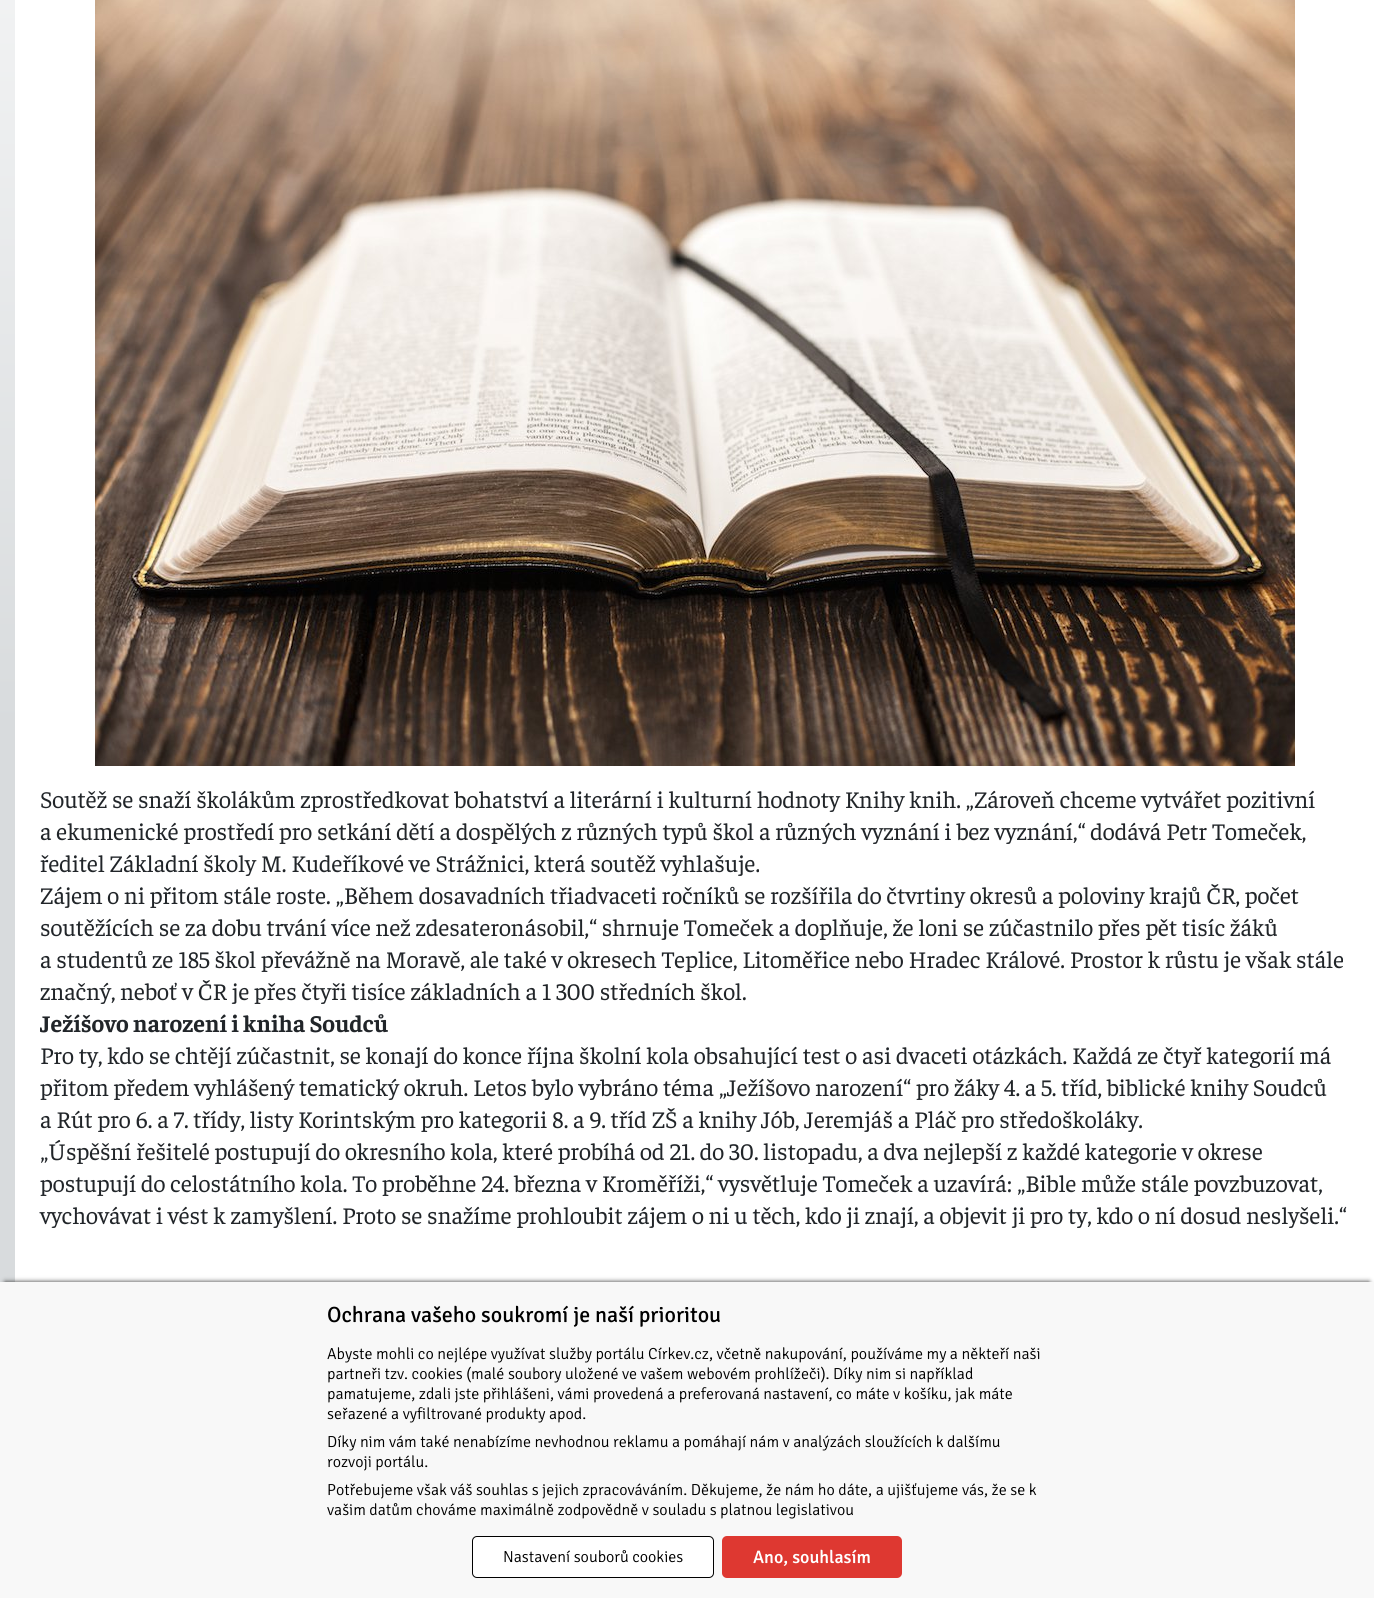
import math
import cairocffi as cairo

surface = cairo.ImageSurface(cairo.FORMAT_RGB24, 1374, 1598)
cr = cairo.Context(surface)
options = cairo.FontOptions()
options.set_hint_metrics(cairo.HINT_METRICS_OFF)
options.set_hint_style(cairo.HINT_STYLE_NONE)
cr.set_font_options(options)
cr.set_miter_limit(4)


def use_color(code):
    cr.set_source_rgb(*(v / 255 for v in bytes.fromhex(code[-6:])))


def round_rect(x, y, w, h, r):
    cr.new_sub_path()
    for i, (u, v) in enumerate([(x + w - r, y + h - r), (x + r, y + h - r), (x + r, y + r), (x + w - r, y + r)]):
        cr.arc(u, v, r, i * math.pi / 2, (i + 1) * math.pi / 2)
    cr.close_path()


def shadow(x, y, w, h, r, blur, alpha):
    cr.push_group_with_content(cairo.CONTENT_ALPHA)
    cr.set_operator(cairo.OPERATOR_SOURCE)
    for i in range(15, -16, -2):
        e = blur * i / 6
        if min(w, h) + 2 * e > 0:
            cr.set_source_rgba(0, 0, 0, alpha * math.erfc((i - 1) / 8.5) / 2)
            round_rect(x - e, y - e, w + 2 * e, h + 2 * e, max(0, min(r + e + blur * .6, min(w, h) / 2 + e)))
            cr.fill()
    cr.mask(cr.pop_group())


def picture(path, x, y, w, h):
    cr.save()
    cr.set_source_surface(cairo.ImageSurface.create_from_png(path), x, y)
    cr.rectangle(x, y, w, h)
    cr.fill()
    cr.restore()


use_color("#ffffff")
cr.paint()
gradient = cairo.LinearGradient(687, 1388, 687, -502)
gradient.add_color_stop_rgba(0.35, 0.847, 0.859, 0.867, 1)
gradient.add_color_stop_rgba(0.95, 1, 1, 1, 1)
cr.set_source(gradient)
cr.rectangle(0, 0, 15, 1282)
cr.fill()
picture("img1.png", 95, 0, 1200, 766)
cr.select_font_face("Faustina Light")
cr.set_font_size(24)
use_color("#212529")
cr.move_to(40, 808)
cr.show_text("Soutěž se snaží školákům zprostředkovat bohatství a literární i kulturní hodnoty Knihy knih. „Zároveň chceme vytvářet pozitivní")
cr.move_to(40, 840)
cr.show_text("a ekumenické prostředí pro setkání dětí a dospělých z různých typů škol a různých vyznání i bez vyznání,“ dodává Petr Tomeček,")
cr.move_to(40, 872)
cr.show_text("ředitel Základní školy M. Kudeříkové ve Strážnici, která soutěž vyhlašuje.")
cr.move_to(40, 904)
cr.show_text("Zájem o ni přitom stále roste. „Během dosavadních třiadvaceti ročníků se rozšířila do čtvrtiny okresů a poloviny krajů ČR, počet")
cr.move_to(40, 936)
cr.show_text("soutěžících se za dobu trvání více než zdesateronásobil,“ shrnuje Tomeček a doplňuje, že loni se zúčastnilo přes pět tisíc žáků")
cr.move_to(40, 968)
cr.show_text("a studentů ze 185 škol převážně na Moravě, ale také v okresech Teplice, Litoměřice nebo Hradec Králové. Prostor k růstu je však stále")
cr.move_to(40, 1000)
cr.show_text("značný, neboť v ČR je přes čtyři tisíce základních a 1 300 středních škol.")
cr.select_font_face("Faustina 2 Light")
cr.move_to(40, 1032)
cr.show_text("Ježíšovo narození i kniha Soudců")
cr.select_font_face("Faustina Light")
cr.move_to(40, 1064)
cr.show_text("Pro ty, kdo se chtějí zúčastnit, se konají do konce října školní kola obsahující test o asi dvaceti otázkách. Každá ze čtyř kategorií má")
cr.move_to(40, 1096)
cr.show_text("přitom předem vyhlášený tematický okruh. Letos bylo vybráno téma „Ježíšovo narození“ pro žáky 4. a 5. tříd, biblické knihy Soudců")
cr.move_to(40, 1128)
cr.show_text("a Rút pro 6. a 7. třídy, listy Korintským pro kategorii 8. a 9. tříd ZŠ a knihy Jób, Jeremjáš a Pláč pro středoškoláky.")
cr.move_to(40, 1160)
cr.show_text("„Úspěšní řešitelé postupují do okresního kola, které probíhá od 21. do 30. listopadu, a dva nejlepší z každé kategorie v okrese")
cr.move_to(40, 1192)
cr.show_text("postupují do celostátního kola. To proběhne 24. března v Kroměříži,“ vysvětluje Tomeček a uzavírá: „Bible může stále povzbuzovat,")
cr.move_to(40, 1224)
cr.show_text("vychovávat i vést k zamyšlení. Proto se snažíme prohloubit zájem o ni u těch, kdo ji znají, a objevit ji pro ty, kdo o ní dosud neslyšeli.“")
use_color("#333333")
shadow(5, 1282, 1364, 306, 0, 2.5, 1)
use_color("#f8f8f8")
cr.rectangle(0, 1282, 1374, 316)
cr.fill()
cr.select_font_face("Signika Light")
cr.set_font_size(22)
use_color("#000000")
cr.move_to(327, 1322)
cr.show_text("Ochrana vašeho soukromí je naší prioritou")
cr.select_font_face("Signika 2 Light")
cr.set_font_size(16)
cr.move_to(327, 1359)
cr.show_text("Abyste mohli co nejlépe využívat služby portálu Církev.cz, včetně nakupování, používáme my a někteří naši")
cr.move_to(327, 1379)
cr.show_text("partneři tzv. cookies (malé soubory uložené ve vašem webovém prohlížeči). Díky nim si například")
cr.move_to(327, 1399)
cr.show_text("pamatujeme, zdali jste přihlášeni, vámi provedená a preferovaná nastavení, co máte v košíku, jak máte")
cr.move_to(327, 1419)
cr.show_text("seřazené a vyfiltrované produkty apod.")
cr.move_to(327, 1447)
cr.show_text("Díky nim vám také nenabízíme nevhodnou reklamu a pomáhají nám v analýzách sloužících k dalšímu")
cr.move_to(327, 1467)
cr.show_text("rozvoji portálu.")
cr.move_to(327, 1495)
cr.show_text("Potřebujeme však váš souhlas s jejich zpracováváním. Děkujeme, že nám ho dáte, a ujišťujeme vás, že se k")
cr.move_to(327, 1515)
cr.show_text("vašim datům chováme maximálně zodpovědně v souladu s platnou legislativou")
use_color("#ffffff")
round_rect(472.5, 1536.5, 241, 41, 4.5)
cr.fill_preserve()
use_color("#000000")
cr.set_line_width(1)
cr.stroke()
cr.move_to(503, 1562)
cr.show_text("Nastavení souborů cookies")
use_color("#de3831")
round_rect(722, 1536, 180, 42, 5)
cr.fill()
cr.select_font_face("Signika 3 Light")
cr.set_font_size(18)
use_color("#ffffff")
cr.move_to(753, 1563)
cr.show_text("Ano, souhlasím")
surface.write_to_png("result.png")
